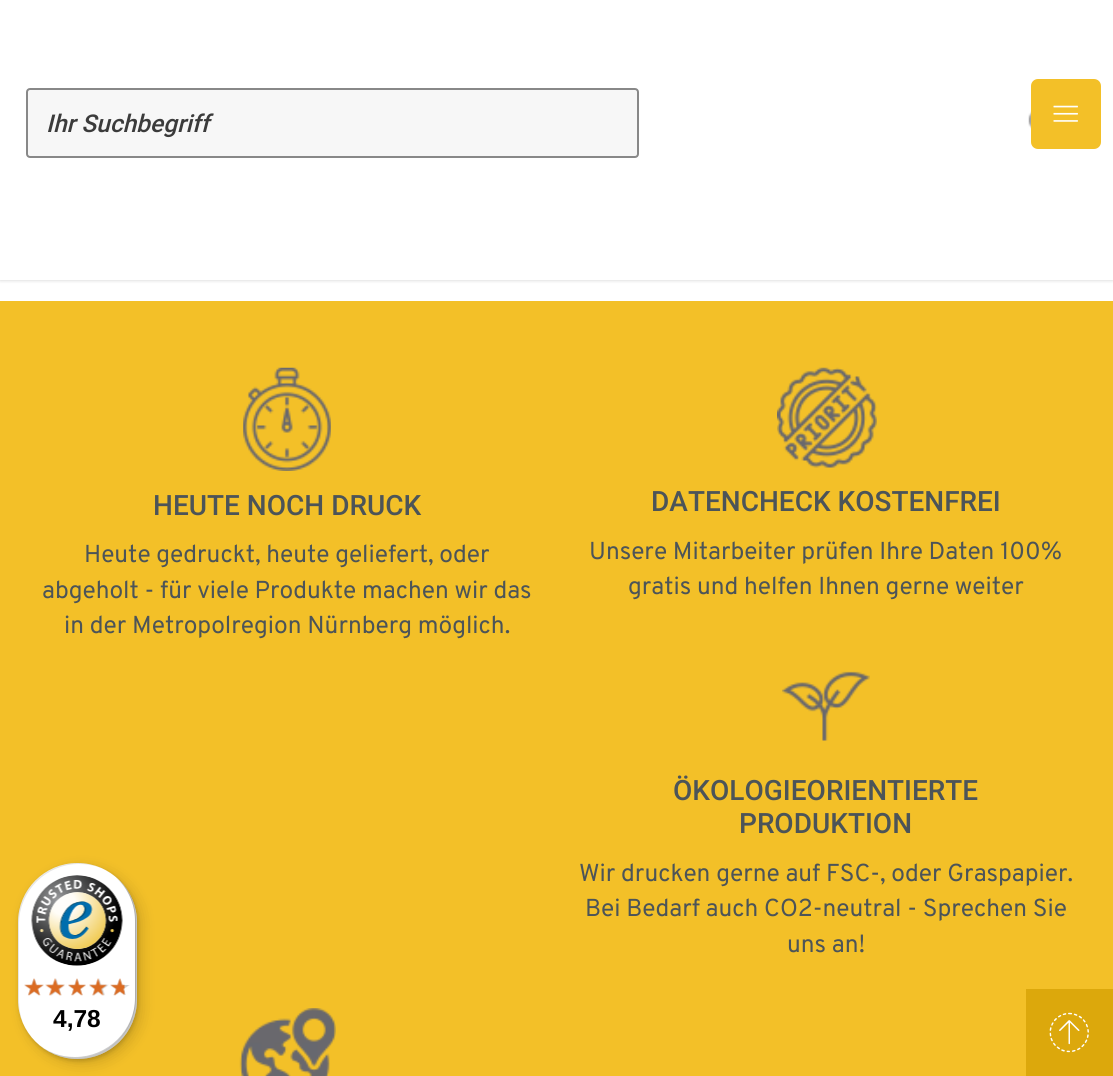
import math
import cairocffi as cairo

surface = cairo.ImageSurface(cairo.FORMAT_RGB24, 1113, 1076)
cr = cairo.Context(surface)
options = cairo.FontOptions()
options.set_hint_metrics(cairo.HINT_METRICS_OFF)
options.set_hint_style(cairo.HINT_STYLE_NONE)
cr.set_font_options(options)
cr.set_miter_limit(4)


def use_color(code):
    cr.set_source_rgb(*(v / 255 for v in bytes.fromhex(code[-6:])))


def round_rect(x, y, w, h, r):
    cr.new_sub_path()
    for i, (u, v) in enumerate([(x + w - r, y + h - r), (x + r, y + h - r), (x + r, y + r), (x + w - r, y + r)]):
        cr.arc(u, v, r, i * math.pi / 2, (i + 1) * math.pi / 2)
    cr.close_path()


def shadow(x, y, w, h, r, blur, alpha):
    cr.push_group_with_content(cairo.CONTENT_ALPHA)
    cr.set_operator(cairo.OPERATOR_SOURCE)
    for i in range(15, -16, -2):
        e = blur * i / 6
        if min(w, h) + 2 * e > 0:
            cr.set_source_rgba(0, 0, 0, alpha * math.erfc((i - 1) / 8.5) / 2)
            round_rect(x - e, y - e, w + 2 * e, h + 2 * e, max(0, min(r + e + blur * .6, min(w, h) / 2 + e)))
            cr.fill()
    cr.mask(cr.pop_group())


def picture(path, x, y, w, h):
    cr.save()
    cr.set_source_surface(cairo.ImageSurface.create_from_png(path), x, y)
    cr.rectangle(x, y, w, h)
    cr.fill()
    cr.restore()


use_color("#ffffff")
cr.paint()
use_color("#000000")
shadow(0, 0, 1113, 280, 0, 2, 0.2)
use_color("#ffffff")
cr.rectangle(0, 0, 1113, 280)
cr.fill()
use_color("#f7f7f7")
round_rect(27, 89, 611, 68, 3)
cr.fill_preserve()
use_color("#888888")
cr.stroke()
cr.select_font_face("Roboto Medium", cairo.FONT_SLANT_ITALIC)
cr.set_font_size(24.5)
use_color("#3b3b3b")
cr.move_to(46, 132)
cr.show_text("Ihr Suchbegriff")
picture("img1.png", 1028, 111, 3, 18)
use_color("#f3c028")
round_rect(1031, 79, 70, 70, 7)
cr.fill()
picture("img2.png", 1053, 105, 25, 17)
cr.rectangle(0, 301, 1113, 775)
cr.fill()
picture("img3.png", 243, 367, 88, 104)
cr.select_font_face("Roboto Medium")
cr.set_font_size(28)
use_color("#4c5458")
cr.move_to(153, 515)
cr.show_text("HEUTE NOCH DRUCK")
cr.select_font_face("Overpass")
cr.set_font_size(24.5)
cr.move_to(84, 562)
cr.show_text("Heute gedruckt, heute geliefert, oder")
cr.move_to(42, 598)
cr.show_text("abgeholt - für viele Produkte machen wir das")
cr.move_to(64, 633)
cr.show_text("in der Metropolregion Nürnberg möglich.")
picture("img4.png", 777, 367, 100, 101)
cr.select_font_face("Roboto Medium")
cr.set_font_size(28)
cr.move_to(651, 511)
cr.show_text("DATENCHECK KOSTENFREI")
cr.select_font_face("Overpass")
cr.set_font_size(24.5)
cr.move_to(589, 559)
cr.show_text("Unsere Mitarbeiter prüfen Ihre Daten 100%")
cr.move_to(628, 594)
cr.show_text("gratis und helfen Ihnen gerne weiter")
picture("img5.png", 782, 671, 88, 70)
cr.select_font_face("Roboto Medium")
cr.set_font_size(28)
cr.move_to(673, 800)
cr.show_text("ÖKOLOGIEORIENTIERTE")
cr.move_to(739, 833)
cr.show_text("PRODUKTION")
cr.select_font_face("Overpass")
cr.set_font_size(24.5)
cr.move_to(579, 881)
cr.show_text("Wir drucken gerne auf FSC-, oder Graspapier.")
cr.move_to(585, 916)
cr.show_text("Bei Bedarf auch CO2-neutral - Sprechen Sie")
cr.move_to(787, 952)
cr.show_text("uns an!")
picture("img6.png", 239, 1008, 97, 68)
use_color("#000000")
shadow(23, 868, 119, 196, 59.5, 7, 0.15)
shadow(19, 865, 119, 196, 59.5, 2, 0.15)
use_color("#ffffff")
round_rect(18, 863, 119, 196, 59.5)
cr.fill()
cr.set_source_rgba(0, 0, 0, 0.1)
cr.new_path()
cr.move_to(79, 864)
cr.curve_to(94, 864, 107, 869, 117, 878)
cr.curve_to(106, 869, 93, 863, 78, 863)
cr.curve_to(45, 863, 18, 890, 18, 922)
cr.line_to(18, 1000)
cr.curve_to(18, 1015, 24, 1028, 33, 1039)
cr.curve_to(24, 1029, 19, 1016, 19, 1001)
cr.line_to(19, 924)
cr.curve_to(19, 891, 46, 864, 79, 864)
cr.close_path()
cr.fill()
cr.set_source_rgba(0, 0, 0, 0.2)
cr.new_path()
cr.move_to(37, 1043)
cr.curve_to(48, 1053, 62, 1059, 78, 1059)
cr.curve_to(110, 1059, 137, 1032, 137, 1000)
cr.line_to(137, 922)
cr.curve_to(137, 904, 129, 888, 115, 877)
cr.curve_to(127, 887, 135, 903, 135, 920)
cr.line_to(135, 998)
cr.curve_to(135, 1030, 108, 1057, 75, 1057)
cr.curve_to(60, 1057, 47, 1052, 37, 1043)
cr.close_path()
cr.fill()
cr.set_source_rgba(0.196, 0.196, 0.196, 0.2)
cr.new_path()
cr.move_to(44, 1049)
cr.curve_to(54, 1055, 65, 1059, 78, 1059)
cr.curve_to(110, 1059, 137, 1032, 137, 1000)
cr.line_to(137, 922)
cr.curve_to(137, 903, 127, 885, 113, 874)
cr.curve_to(126, 885, 135, 902, 135, 921)
cr.line_to(135, 998)
cr.curve_to(135, 1031, 109, 1058, 76, 1058)
cr.curve_to(64, 1058, 53, 1055, 44, 1049)
cr.close_path()
cr.fill()
cr.set_source_rgba(1, 1, 1, 0.3)
cr.new_path()
cr.move_to(38, 1044)
cr.curve_to(49, 1053, 62, 1059, 78, 1059)
cr.curve_to(110, 1059, 137, 1032, 137, 1000)
cr.line_to(137, 922)
cr.curve_to(137, 903, 127, 885, 112, 874)
cr.curve_to(127, 885, 136, 902, 136, 921)
cr.line_to(136, 998)
cr.curve_to(136, 1031, 109, 1058, 76, 1058)
cr.curve_to(61, 1058, 48, 1053, 38, 1044)
cr.close_path()
cr.fill()
picture("img7.png", 31, 875, 92, 91)
picture("img8.png", 24, 979, 20, 16)
picture("img9.png", 47, 978, 18, 18)
picture("img10.png", 68, 979, 18, 16)
picture("img11.png", 89, 978, 20, 18)
picture("img12.png", 110, 979, 20, 16)
picture("img13.png", 24, 978, 20, 18)
picture("img14.png", 45, 978, 20, 18)
picture("img15.png", 68, 978, 18, 18)
picture("img16.png", 89, 978, 18, 18)
picture("img17.png", 110, 978, 15, 18)
cr.select_font_face("Liberation Sans", cairo.FONT_SLANT_NORMAL, cairo.FONT_WEIGHT_BOLD)
use_color("#000000")
cr.move_to(53, 1027)
cr.show_text("4,78")
use_color("#dca80c")
cr.rectangle(1026, 989, 87, 87)
cr.fill()
picture("img18.png", 1049, 1012, 40, 41)
surface.write_to_png("result.png")
